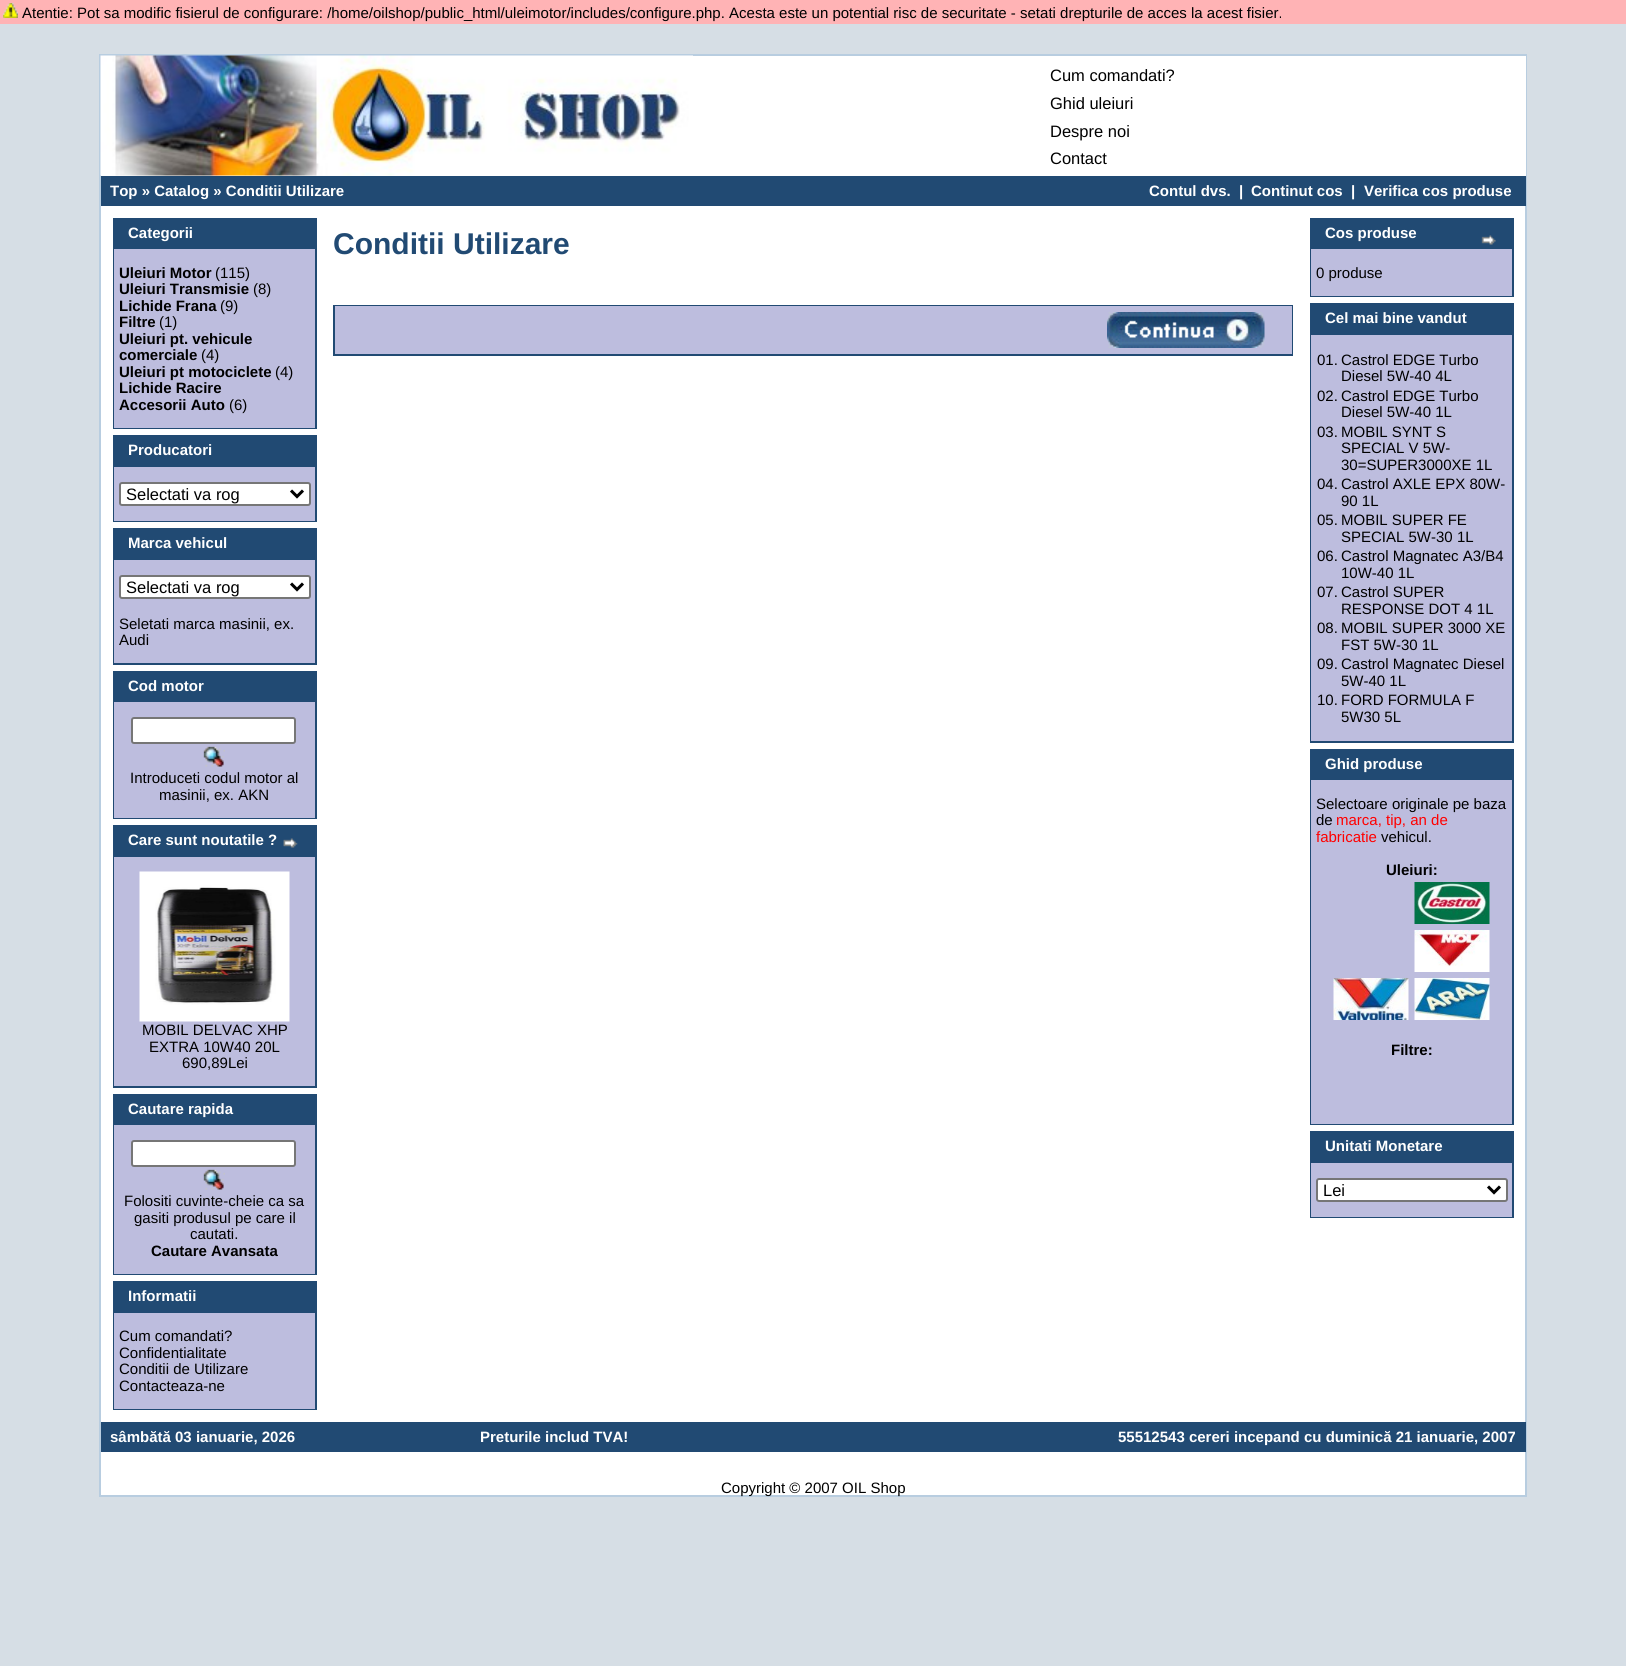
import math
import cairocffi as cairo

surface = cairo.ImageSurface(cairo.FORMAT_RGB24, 1626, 1666)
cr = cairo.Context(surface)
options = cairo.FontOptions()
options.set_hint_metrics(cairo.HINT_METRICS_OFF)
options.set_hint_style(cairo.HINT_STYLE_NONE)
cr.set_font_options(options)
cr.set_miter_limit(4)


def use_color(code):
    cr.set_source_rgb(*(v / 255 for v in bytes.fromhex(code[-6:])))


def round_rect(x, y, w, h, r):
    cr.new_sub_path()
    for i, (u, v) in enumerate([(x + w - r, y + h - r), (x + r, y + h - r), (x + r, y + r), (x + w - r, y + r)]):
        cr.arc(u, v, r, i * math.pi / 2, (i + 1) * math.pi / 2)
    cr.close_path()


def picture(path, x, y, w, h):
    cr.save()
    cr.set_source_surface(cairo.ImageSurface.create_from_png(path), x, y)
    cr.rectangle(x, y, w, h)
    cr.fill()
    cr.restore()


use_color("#d6dee5")
cr.paint()
use_color("#ffb3b5")
cr.rectangle(0, 0, 1626, 24)
cr.fill()
picture("img1.png", 3, 3, 15, 15)
cr.select_font_face("Liberation Sans")
cr.set_font_size(15)
use_color("#000000")
cr.move_to(22, 18)
cr.show_text("Atentie: Pot sa modific fisierul de configurare: /home/oilshop/public_html/uleimotor/includes/configure.php. Acesta este un potential risc de securitate - setati drepturile de acces la acest fisier.")
use_color("#ffffff")
cr.rectangle(101, 206, 1424, 1289)
cr.fill()
cr.rectangle(100, 55, 1426, 1441)
use_color("#b8cde0")
cr.stroke()
use_color("#ffffff")
cr.rectangle(101, 56, 1425, 120)
cr.fill()
picture("img2.png", 100, 55, 593, 121)
cr.set_font_size(16.5)
use_color("#000000")
cr.move_to(1050, 81)
cr.show_text("Cum comandati?")
cr.move_to(1050, 109)
cr.show_text("Ghid uleiuri")
cr.move_to(1050, 137)
cr.show_text("Despre noi")
cr.move_to(1050, 164)
cr.show_text("Contact")
use_color("#214a73")
cr.rectangle(101, 176, 1425, 30)
cr.fill()
cr.select_font_face("Liberation Sans", cairo.FONT_SLANT_NORMAL, cairo.FONT_WEIGHT_BOLD)
cr.set_font_size(15)
use_color("#ffffff")
cr.move_to(110, 196)
cr.show_text("Top » Catalog » Conditii Utilizare")
cr.move_to(1149, 196)
cr.show_text("Contul dvs.")
cr.move_to(1239, 196)
cr.show_text("|")
cr.move_to(1251, 196)
cr.show_text("Continut cos")
cr.move_to(1351, 196)
cr.show_text("|")
cr.move_to(1364, 196)
cr.show_text("Verifica cos produse")
use_color("#214a73")
cr.rectangle(113, 218, 204, 211)
cr.fill()
use_color("#ffffff")
cr.move_to(128, 238)
cr.show_text("Categorii")
use_color("#bdbdde")
cr.rectangle(114, 249, 201, 179)
cr.fill()
use_color("#000000")
cr.move_to(119, 278)
cr.show_text("Uleiuri Motor")
cr.select_font_face("Liberation Sans")
cr.move_to(215, 278)
cr.show_text("(115)")
cr.select_font_face("Liberation Sans", cairo.FONT_SLANT_NORMAL, cairo.FONT_WEIGHT_BOLD)
cr.move_to(119, 294)
cr.show_text("Uleiuri Transmisie")
cr.select_font_face("Liberation Sans")
cr.move_to(253, 294)
cr.show_text("(8)")
cr.select_font_face("Liberation Sans", cairo.FONT_SLANT_NORMAL, cairo.FONT_WEIGHT_BOLD)
cr.move_to(119, 311)
cr.show_text("Lichide Frana")
cr.select_font_face("Liberation Sans")
cr.move_to(220, 311)
cr.show_text("(9)")
cr.select_font_face("Liberation Sans", cairo.FONT_SLANT_NORMAL, cairo.FONT_WEIGHT_BOLD)
cr.move_to(119, 327)
cr.show_text("Filtre")
cr.select_font_face("Liberation Sans")
cr.move_to(159, 327)
cr.show_text("(1)")
cr.select_font_face("Liberation Sans", cairo.FONT_SLANT_NORMAL, cairo.FONT_WEIGHT_BOLD)
cr.move_to(119, 344)
cr.show_text("Uleiuri pt. vehicule")
cr.move_to(119, 360)
cr.show_text("comerciale")
cr.select_font_face("Liberation Sans")
cr.move_to(201, 360)
cr.show_text("(4)")
cr.select_font_face("Liberation Sans", cairo.FONT_SLANT_NORMAL, cairo.FONT_WEIGHT_BOLD)
cr.move_to(119, 377)
cr.show_text("Uleiuri pt motociclete")
cr.select_font_face("Liberation Sans")
cr.move_to(275, 377)
cr.show_text("(4)")
cr.select_font_face("Liberation Sans", cairo.FONT_SLANT_NORMAL, cairo.FONT_WEIGHT_BOLD)
cr.move_to(119, 393)
cr.show_text("Lichide Racire")
cr.move_to(119, 410)
cr.show_text("Accesorii Auto")
cr.select_font_face("Liberation Sans")
cr.move_to(229, 410)
cr.show_text("(6)")
use_color("#214a73")
cr.rectangle(113, 435, 204, 87)
cr.fill()
cr.select_font_face("Liberation Sans", cairo.FONT_SLANT_NORMAL, cairo.FONT_WEIGHT_BOLD)
use_color("#ffffff")
cr.move_to(128, 455)
cr.show_text("Producatori")
use_color("#bdbdde")
cr.rectangle(114, 467, 201, 54)
cr.fill()
use_color("#ffffff")
round_rect(120, 483, 190, 22, 2)
cr.fill_preserve()
use_color("#767676")
cr.stroke()
cr.new_path()
cr.move_to(291, 490.5)
cr.line_to(297, 496.5)
cr.line_to(303, 490.5)
use_color("#000000")
cr.set_line_width(3)
cr.stroke()
cr.select_font_face("Liberation Sans")
cr.set_font_size(16.5)
cr.move_to(126, 500)
cr.show_text("Selectati va rog")
use_color("#214a73")
cr.rectangle(113, 528, 204, 137)
cr.fill()
cr.select_font_face("Liberation Sans", cairo.FONT_SLANT_NORMAL, cairo.FONT_WEIGHT_BOLD)
cr.set_font_size(15)
use_color("#ffffff")
cr.move_to(128, 548)
cr.show_text("Marca vehicul")
use_color("#bdbdde")
cr.rectangle(114, 560, 201, 103)
cr.fill()
use_color("#ffffff")
round_rect(120, 576, 190, 22, 2)
cr.fill_preserve()
use_color("#767676")
cr.set_line_width(2)
cr.stroke()
cr.new_path()
cr.move_to(291, 583.5)
cr.line_to(297, 589.5)
cr.line_to(303, 583.5)
use_color("#000000")
cr.set_line_width(3)
cr.stroke()
cr.select_font_face("Liberation Sans")
cr.set_font_size(16.5)
cr.move_to(126, 593)
cr.show_text("Selectati va rog")
cr.set_font_size(15)
cr.move_to(119, 629)
cr.show_text("Seletati marca masinii, ex.")
cr.move_to(119, 645)
cr.show_text("Audi")
use_color("#214a73")
cr.rectangle(113, 671, 204, 148)
cr.fill()
cr.select_font_face("Liberation Sans", cairo.FONT_SLANT_NORMAL, cairo.FONT_WEIGHT_BOLD)
use_color("#ffffff")
cr.move_to(128, 691)
cr.show_text("Cod motor")
use_color("#bdbdde")
cr.rectangle(114, 702, 201, 116)
cr.fill()
use_color("#ffffff")
round_rect(132, 718, 163, 25, 2)
cr.fill_preserve()
use_color("#767676")
cr.set_line_width(2)
cr.stroke()
picture("img3.png", 203, 746, 22, 21)
cr.select_font_face("Liberation Sans")
use_color("#000000")
cr.move_to(130, 783)
cr.show_text("Introduceti codul motor al")
cr.move_to(159, 800)
cr.show_text("masinii, ex. AKN")
use_color("#214a73")
cr.rectangle(113, 825, 204, 263)
cr.fill()
cr.select_font_face("Liberation Sans", cairo.FONT_SLANT_NORMAL, cairo.FONT_WEIGHT_BOLD)
use_color("#ffffff")
cr.move_to(128, 845)
cr.show_text("Care sunt noutatile ?")
picture("img4.png", 283, 838, 15, 10)
use_color("#bdbdde")
cr.rectangle(114, 857, 201, 229)
cr.fill()
picture("img5.png", 139, 871, 151, 151)
cr.select_font_face("Liberation Sans")
use_color("#000000")
cr.move_to(142, 1035)
cr.show_text("MOBIL DELVAC XHP")
cr.move_to(149, 1052)
cr.show_text("EXTRA 10W40 20L")
cr.move_to(182, 1068)
cr.show_text("690,89Lei")
use_color("#214a73")
cr.rectangle(113, 1094, 204, 181)
cr.fill()
cr.select_font_face("Liberation Sans", cairo.FONT_SLANT_NORMAL, cairo.FONT_WEIGHT_BOLD)
use_color("#ffffff")
cr.move_to(128, 1114)
cr.show_text("Cautare rapida")
use_color("#bdbdde")
cr.rectangle(114, 1125, 201, 149)
cr.fill()
use_color("#ffffff")
round_rect(132, 1141, 163, 25, 2)
cr.fill_preserve()
use_color("#767676")
cr.stroke()
picture("img3.png", 203, 1169, 22, 21)
cr.select_font_face("Liberation Sans")
use_color("#000000")
cr.move_to(124, 1206)
cr.show_text("Folositi cuvinte-cheie ca sa")
cr.move_to(134, 1223)
cr.show_text("gasiti produsul pe care il")
cr.move_to(190, 1239)
cr.show_text("cautati.")
cr.select_font_face("Liberation Sans", cairo.FONT_SLANT_NORMAL, cairo.FONT_WEIGHT_BOLD)
cr.move_to(151, 1256)
cr.show_text("Cautare Avansata")
use_color("#214a73")
cr.rectangle(113, 1281, 204, 129)
cr.fill()
use_color("#ffffff")
cr.move_to(128, 1301)
cr.show_text("Informatii")
use_color("#bdbdde")
cr.rectangle(114, 1313, 201, 96)
cr.fill()
cr.select_font_face("Liberation Sans")
use_color("#000000")
cr.move_to(119, 1341)
cr.show_text("Cum comandati?")
cr.move_to(119, 1358)
cr.show_text("Confidentialitate")
cr.move_to(119, 1374)
cr.show_text("Conditii de Utilizare")
cr.move_to(119, 1391)
cr.show_text("Contacteaza-ne")
cr.select_font_face("Liberation Sans", cairo.FONT_SLANT_NORMAL, cairo.FONT_WEIGHT_BOLD)
cr.set_font_size(30)
use_color("#214a73")
cr.move_to(333, 254)
cr.show_text("Conditii Utilizare")
cr.rectangle(333, 305, 960, 51)
cr.fill()
use_color("#bdbdde")
cr.rectangle(335, 306, 957, 48)
cr.fill()
picture("img6.png", 1107, 312, 158, 36)
use_color("#214a73")
cr.rectangle(1310, 218, 204, 79)
cr.fill()
cr.set_font_size(15)
use_color("#ffffff")
cr.move_to(1325, 238)
cr.show_text("Cos produse")
picture("img7.png", 1481, 235, 15, 10)
use_color("#bdbdde")
cr.rectangle(1311, 249, 201, 47)
cr.fill()
cr.select_font_face("Liberation Sans")
use_color("#000000")
cr.move_to(1316, 278)
cr.show_text("0 produse")
use_color("#214a73")
cr.rectangle(1310, 303, 204, 440)
cr.fill()
cr.select_font_face("Liberation Sans", cairo.FONT_SLANT_NORMAL, cairo.FONT_WEIGHT_BOLD)
use_color("#ffffff")
cr.move_to(1325, 323)
cr.show_text("Cel mai bine vandut")
use_color("#bdbdde")
cr.rectangle(1311, 335, 201, 406)
cr.fill()
cr.select_font_face("Liberation Sans")
use_color("#000000")
cr.move_to(1317, 365)
cr.show_text("01.")
cr.move_to(1341, 365)
cr.show_text("Castrol EDGE Turbo")
cr.move_to(1341, 381)
cr.show_text("Diesel 5W-40 4L")
cr.move_to(1317, 401)
cr.show_text("02.")
cr.move_to(1341, 401)
cr.show_text("Castrol EDGE Turbo")
cr.move_to(1341, 417)
cr.show_text("Diesel 5W-40 1L")
cr.move_to(1317, 437)
cr.show_text("03.")
cr.move_to(1341, 437)
cr.show_text("MOBIL SYNT S")
cr.move_to(1341, 453)
cr.show_text("SPECIAL V 5W-")
cr.move_to(1341, 470)
cr.show_text("30=SUPER3000XE 1L")
cr.move_to(1317, 489)
cr.show_text("04.")
cr.move_to(1341, 489)
cr.show_text("Castrol AXLE EPX 80W-")
cr.move_to(1341, 506)
cr.show_text("90 1L")
cr.move_to(1317, 525)
cr.show_text("05.")
cr.move_to(1341, 525)
cr.show_text("MOBIL SUPER FE")
cr.move_to(1341, 542)
cr.show_text("SPECIAL 5W-30 1L")
cr.move_to(1317, 561)
cr.show_text("06.")
cr.move_to(1341, 561)
cr.show_text("Castrol Magnatec A3/B4")
cr.move_to(1341, 578)
cr.show_text("10W-40 1L")
cr.move_to(1317, 597)
cr.show_text("07.")
cr.move_to(1341, 597)
cr.show_text("Castrol SUPER")
cr.move_to(1341, 614)
cr.show_text("RESPONSE DOT 4 1L")
cr.move_to(1317, 633)
cr.show_text("08.")
cr.move_to(1341, 633)
cr.show_text("MOBIL SUPER 3000 XE")
cr.move_to(1341, 650)
cr.show_text("FST 5W-30 1L")
cr.move_to(1317, 669)
cr.show_text("09.")
cr.move_to(1341, 669)
cr.show_text("Castrol Magnatec Diesel")
cr.move_to(1341, 686)
cr.show_text("5W-40 1L")
cr.move_to(1317, 705)
cr.show_text("10.")
cr.move_to(1341, 705)
cr.show_text("FORD FORMULA F")
cr.move_to(1341, 722)
cr.show_text("5W30 5L")
use_color("#214a73")
cr.rectangle(1310, 749, 204, 376)
cr.fill()
cr.select_font_face("Liberation Sans", cairo.FONT_SLANT_NORMAL, cairo.FONT_WEIGHT_BOLD)
use_color("#ffffff")
cr.move_to(1325, 769)
cr.show_text("Ghid produse")
use_color("#bdbdde")
cr.rectangle(1311, 780, 201, 344)
cr.fill()
cr.select_font_face("Liberation Sans")
use_color("#000000")
cr.move_to(1316, 809)
cr.show_text("Selectoare originale pe baza")
cr.move_to(1316, 825)
cr.show_text("de")
use_color("#ff0000")
cr.move_to(1336, 825)
cr.show_text("marca, tip, an de")
cr.move_to(1316, 842)
cr.show_text("fabricatie")
use_color("#000000")
cr.move_to(1381, 842)
cr.show_text("vehicul.")
cr.select_font_face("Liberation Sans", cairo.FONT_SLANT_NORMAL, cairo.FONT_WEIGHT_BOLD)
cr.move_to(1386, 875)
cr.show_text("Uleiuri:")
picture("img8.png", 1414, 882, 76, 42)
picture("img9.png", 1414, 930, 76, 42)
picture("img10.png", 1333, 978, 76, 42)
picture("img11.png", 1414, 978, 76, 42)
cr.move_to(1391, 1055)
cr.show_text("Filtre:")
use_color("#214a73")
cr.rectangle(1310, 1131, 204, 87)
cr.fill()
use_color("#ffffff")
cr.move_to(1325, 1151)
cr.show_text("Unitati Monetare")
use_color("#bdbdde")
cr.rectangle(1311, 1163, 201, 54)
cr.fill()
use_color("#ffffff")
round_rect(1317, 1179, 190, 22, 2)
cr.fill_preserve()
use_color("#767676")
cr.stroke()
cr.new_path()
cr.move_to(1488, 1186.5)
cr.line_to(1494, 1192.5)
cr.line_to(1500, 1186.5)
use_color("#000000")
cr.set_line_width(3)
cr.stroke()
cr.select_font_face("Liberation Sans")
cr.set_font_size(16.5)
cr.move_to(1323, 1196)
cr.show_text("Lei")
use_color("#214a73")
cr.rectangle(101, 1422, 1425, 30)
cr.fill()
cr.select_font_face("Liberation Sans", cairo.FONT_SLANT_NORMAL, cairo.FONT_WEIGHT_BOLD)
cr.set_font_size(15)
use_color("#ffffff")
cr.move_to(110, 1442)
cr.show_text("sâmbătă 03 ianuarie, 2026")
cr.move_to(480, 1442)
cr.show_text("Preturile includ TVA!")
cr.move_to(1118, 1442)
cr.show_text("55512543 cereri incepand cu duminică 21 ianuarie, 2007")
cr.select_font_face("Liberation Sans")
use_color("#000000")
cr.move_to(721, 1493)
cr.show_text("Copyright © 2007 OIL Shop")
surface.write_to_png("result.png")
